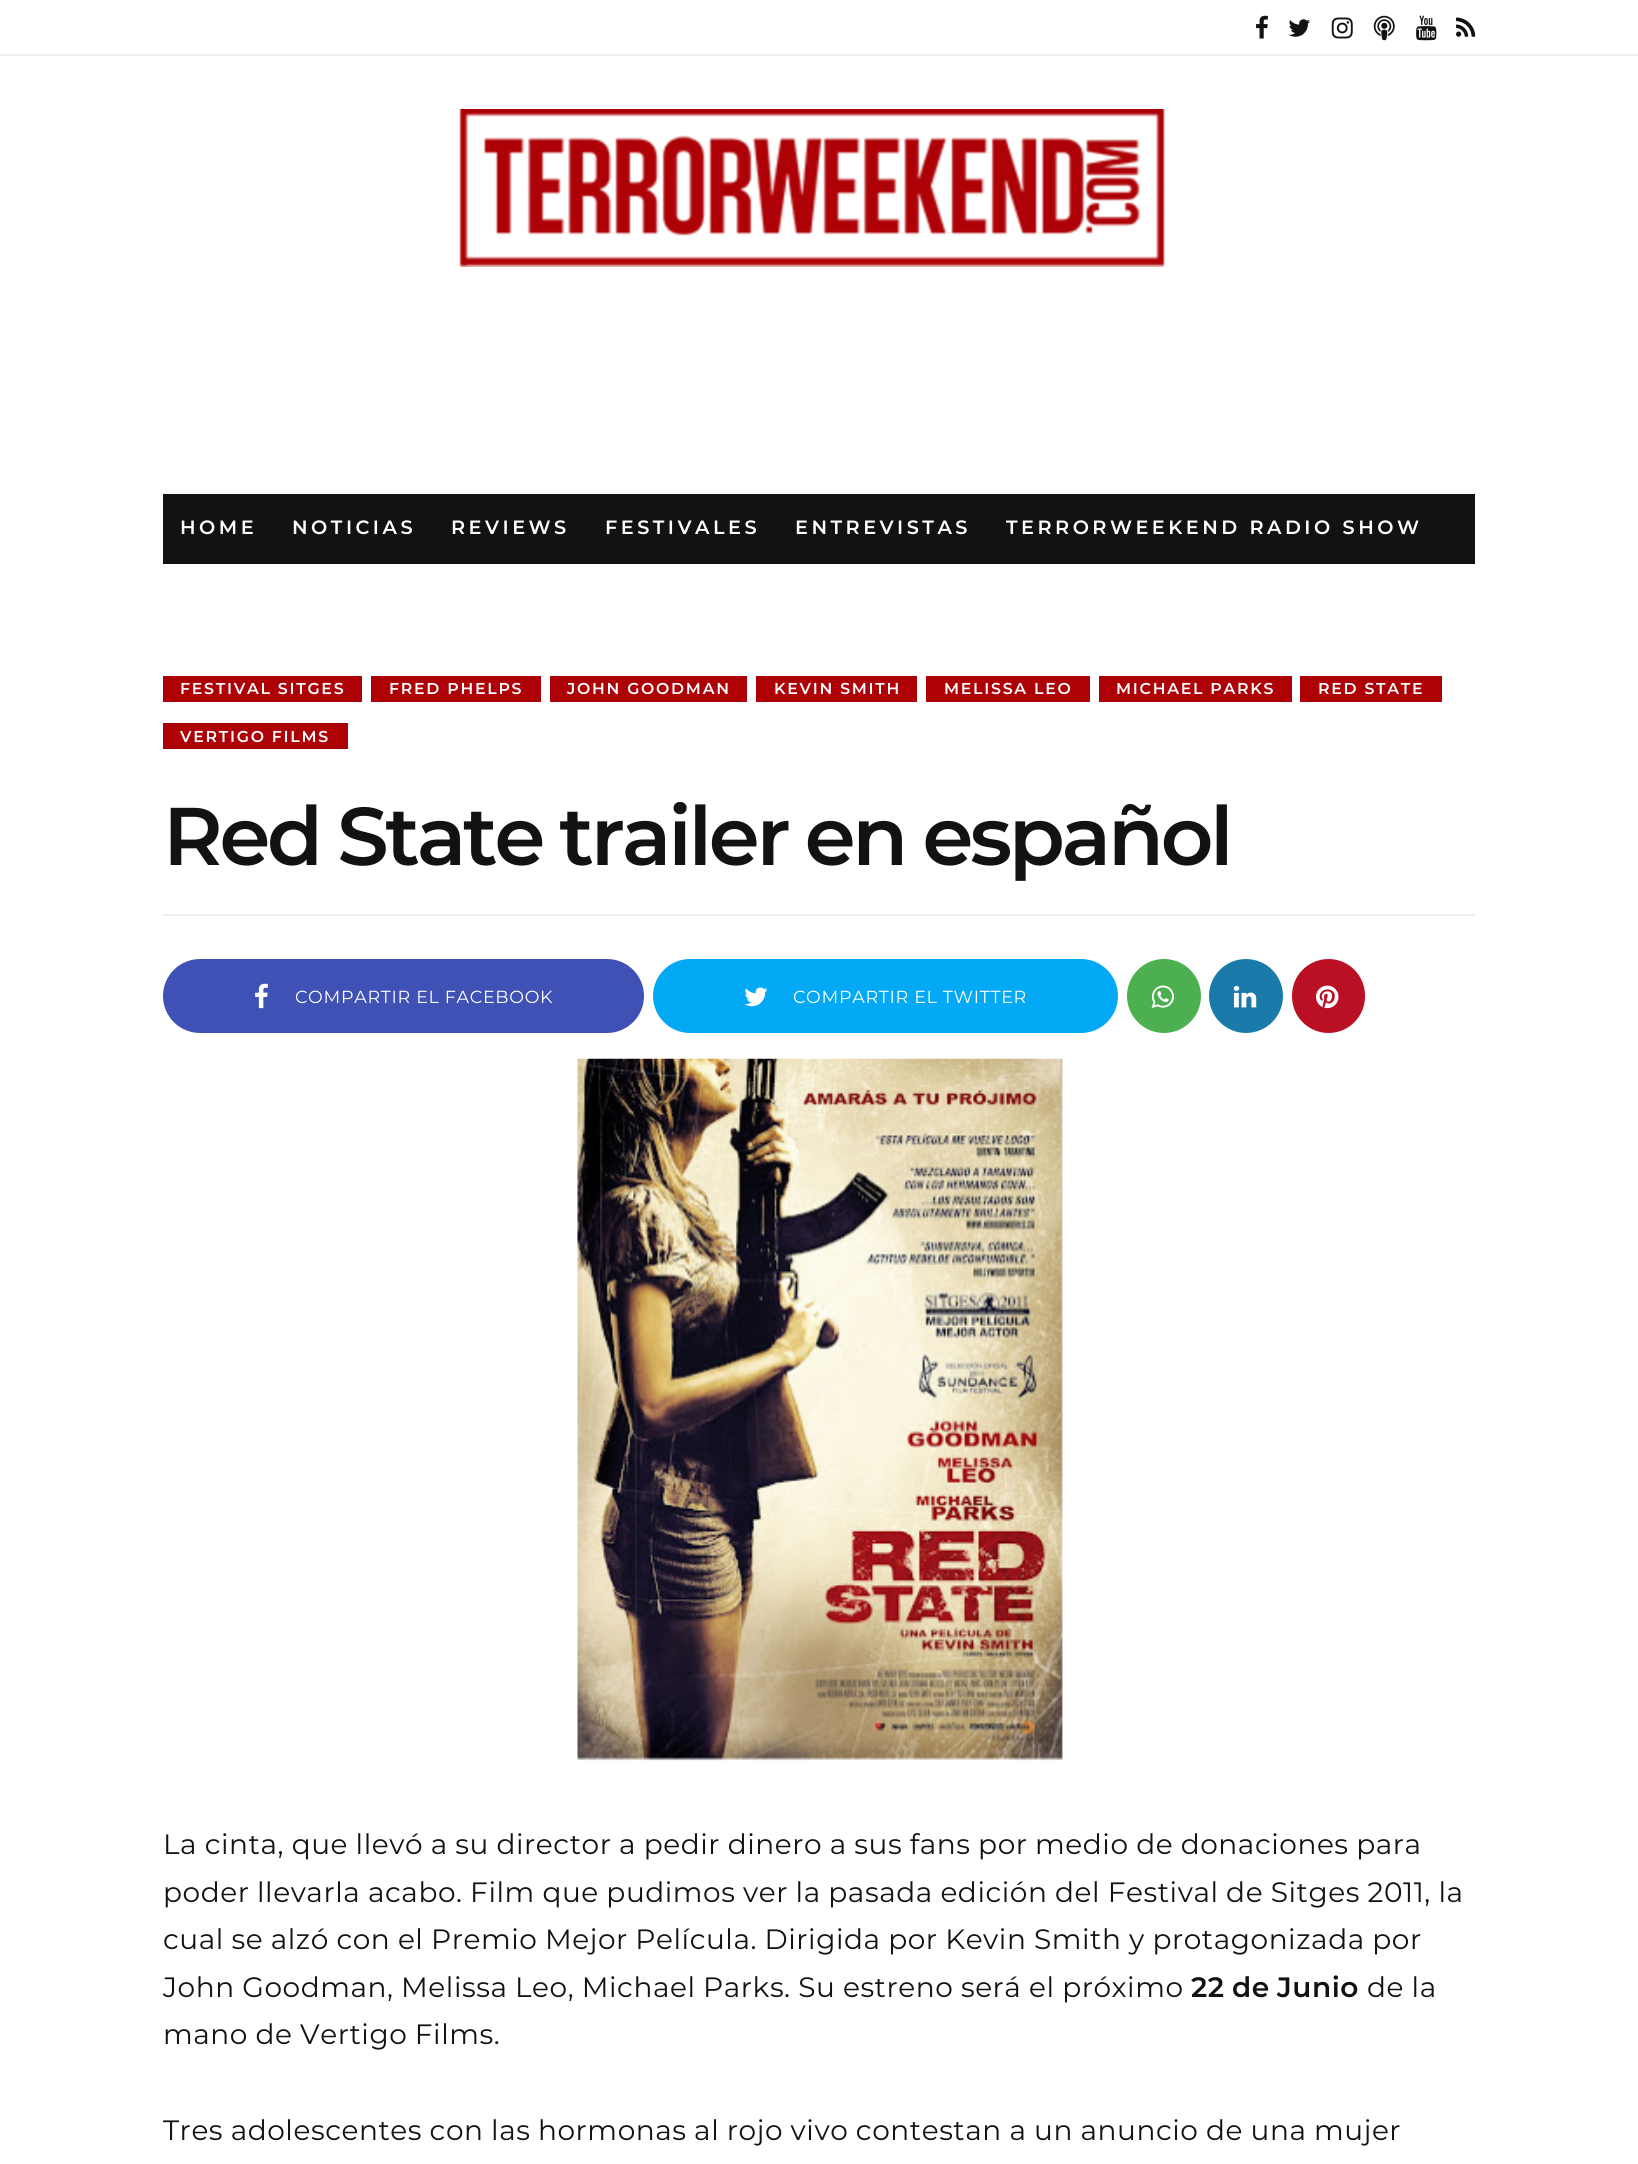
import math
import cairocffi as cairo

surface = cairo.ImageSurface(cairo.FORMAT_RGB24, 1638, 2164)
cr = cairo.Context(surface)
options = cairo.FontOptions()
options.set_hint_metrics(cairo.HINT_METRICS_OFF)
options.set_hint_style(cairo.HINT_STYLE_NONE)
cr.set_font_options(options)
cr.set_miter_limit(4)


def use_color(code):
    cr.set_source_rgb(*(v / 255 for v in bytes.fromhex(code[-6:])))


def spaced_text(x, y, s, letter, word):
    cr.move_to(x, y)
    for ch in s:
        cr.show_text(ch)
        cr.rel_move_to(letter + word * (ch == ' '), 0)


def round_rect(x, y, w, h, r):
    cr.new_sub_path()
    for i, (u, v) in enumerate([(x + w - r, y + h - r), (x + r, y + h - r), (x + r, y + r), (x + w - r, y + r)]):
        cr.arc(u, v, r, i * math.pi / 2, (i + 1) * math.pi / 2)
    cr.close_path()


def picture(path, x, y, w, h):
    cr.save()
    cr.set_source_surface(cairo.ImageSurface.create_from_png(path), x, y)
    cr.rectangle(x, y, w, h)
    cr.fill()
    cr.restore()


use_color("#ffffff")
cr.paint()
use_color("#eeeeee")
cr.rectangle(0, 54, 1638, 2)
cr.fill()
picture("img1.png", 1256, 15, 12, 24)
picture("img2.png", 1288, 19, 22, 18)
picture("img3.png", 1331, 17, 22, 22)
picture("img4.png", 1373, 15, 22, 26)
picture("img5.png", 1416, 15, 21, 26)
picture("img6.png", 1456, 17, 20, 20)
picture("img7.png", 459, 109, 706, 158)
use_color("#121212")
cr.rectangle(163, 494, 1312, 70)
cr.fill()
cr.select_font_face("Montserrat SemiBold")
cr.set_font_size(19.25)
use_color("#ffffff")
spaced_text(180, 534, "HOME", 3.5, 0)
spaced_text(292, 534, "NOTICIAS", 3.5, 0)
spaced_text(451, 534, "REVIEWS", 3.5, 0)
spaced_text(605, 534, "FESTIVALES", 3.5, 0)
spaced_text(795, 534, "ENTREVISTAS", 3.5, 0)
spaced_text(1006, 534, "TERRORWEEKEND RADIO SHOW", 3.5, 0)
use_color("#ad0007")
cr.rectangle(163, 676, 199, 26)
cr.fill()
cr.set_font_size(15.75)
use_color("#ffffff")
spaced_text(180, 694, "FESTIVAL SITGES", 1.75, 0)
use_color("#ad0007")
cr.rectangle(371, 676, 170, 26)
cr.fill()
use_color("#ffffff")
spaced_text(389, 694, "FRED PHELPS", 1.75, 0)
use_color("#ad0007")
cr.rectangle(550, 676, 197, 26)
cr.fill()
use_color("#ffffff")
spaced_text(567, 694, "JOHN GOODMAN", 1.75, 0)
use_color("#ad0007")
cr.rectangle(756, 676, 161, 26)
cr.fill()
use_color("#ffffff")
spaced_text(774, 694, "KEVIN SMITH", 1.75, 0)
use_color("#ad0007")
cr.rectangle(926, 676, 164, 26)
cr.fill()
use_color("#ffffff")
spaced_text(944, 694, "MELISSA LEO", 1.75, 0)
use_color("#ad0007")
cr.rectangle(1099, 676, 193, 26)
cr.fill()
use_color("#ffffff")
spaced_text(1116, 694, "MICHAEL PARKS", 1.75, 0)
use_color("#ad0007")
cr.rectangle(1300, 676, 142, 26)
cr.fill()
use_color("#ffffff")
spaced_text(1318, 694, "RED STATE", 1.75, 0)
use_color("#ad0007")
cr.rectangle(163, 723, 185, 26)
cr.fill()
use_color("#ffffff")
spaced_text(180, 742, "VERTIGO FILMS", 1.75, 0)
cr.set_font_size(81.7)
use_color("#121212")
spaced_text(163, 865, "Red State trailer en español", -3.25, -2)
use_color("#eeeeee")
cr.rectangle(163, 914, 1312, 2)
cr.fill()
use_color("#3f51b5")
round_rect(163, 959, 481, 74, 37)
cr.fill()
picture("img8.png", 255, 983, 13, 26)
cr.select_font_face("Montserrat")
cr.set_font_size(17.5)
use_color("#ffffff")
spaced_text(295, 1003, "COMPARTIR EL FACEBOOK", 0.7, 0)
use_color("#03a9f4")
round_rect(653, 959, 465, 74, 37)
cr.fill()
picture("img9.png", 744, 987, 24, 20)
use_color("#ffffff")
spaced_text(793, 1003, "COMPARTIR EL TWITTER", 0.7, 0)
use_color("#4caf50")
cr.new_path()
cr.arc(1164, 996, 37, 0, 2 * math.pi)
cr.fill()
picture("img10.png", 1151, 985, 23, 24)
use_color("#1a7baa")
cr.arc(1246, 996, 37, 0, 2 * math.pi)
cr.fill()
picture("img11.png", 1233, 985, 24, 23)
use_color("#bb0f24")
round_rect(1292, 959, 73, 74, 36.5)
cr.fill()
picture("img12.png", 1316, 985, 23, 24)
picture("img13.png", 577, 1058, 486, 703)
cr.set_font_size(28)
use_color("#121212")
spaced_text(163, 1854, "La cinta, que llevó a su director a pedir dinero a sus fans por medio de donaciones para", 0.55, -0.3)
spaced_text(163, 1902, "poder llevarla acabo. Film que pudimos ver la pasada edición del Festival de Sitges 2011, la", 0.55, -0.3)
spaced_text(163, 1949, "cual se alzó con el Premio Mejor Película. Dirigida por Kevin Smith y protagonizada por", 0.55, -0.3)
spaced_text(163, 1997, "John Goodman, Melissa Leo, Michael Parks. Su estreno será el próximo", 0.55, -0.3)
cr.select_font_face("Montserrat SemiBold")
spaced_text(1191, 1997, "22 de Junio", 0.55, -1)
cr.select_font_face("Montserrat")
spaced_text(1367, 1997, "de la", 0.55, -0.3)
spaced_text(163, 2044, "mano de Vertigo Films.", 0.55, -0.3)
spaced_text(163, 2140, "Tres adolescentes con las hormonas al rojo vivo contestan a un anuncio de una mujer", 0.55, -0.3)
surface.write_to_png("result.png")
